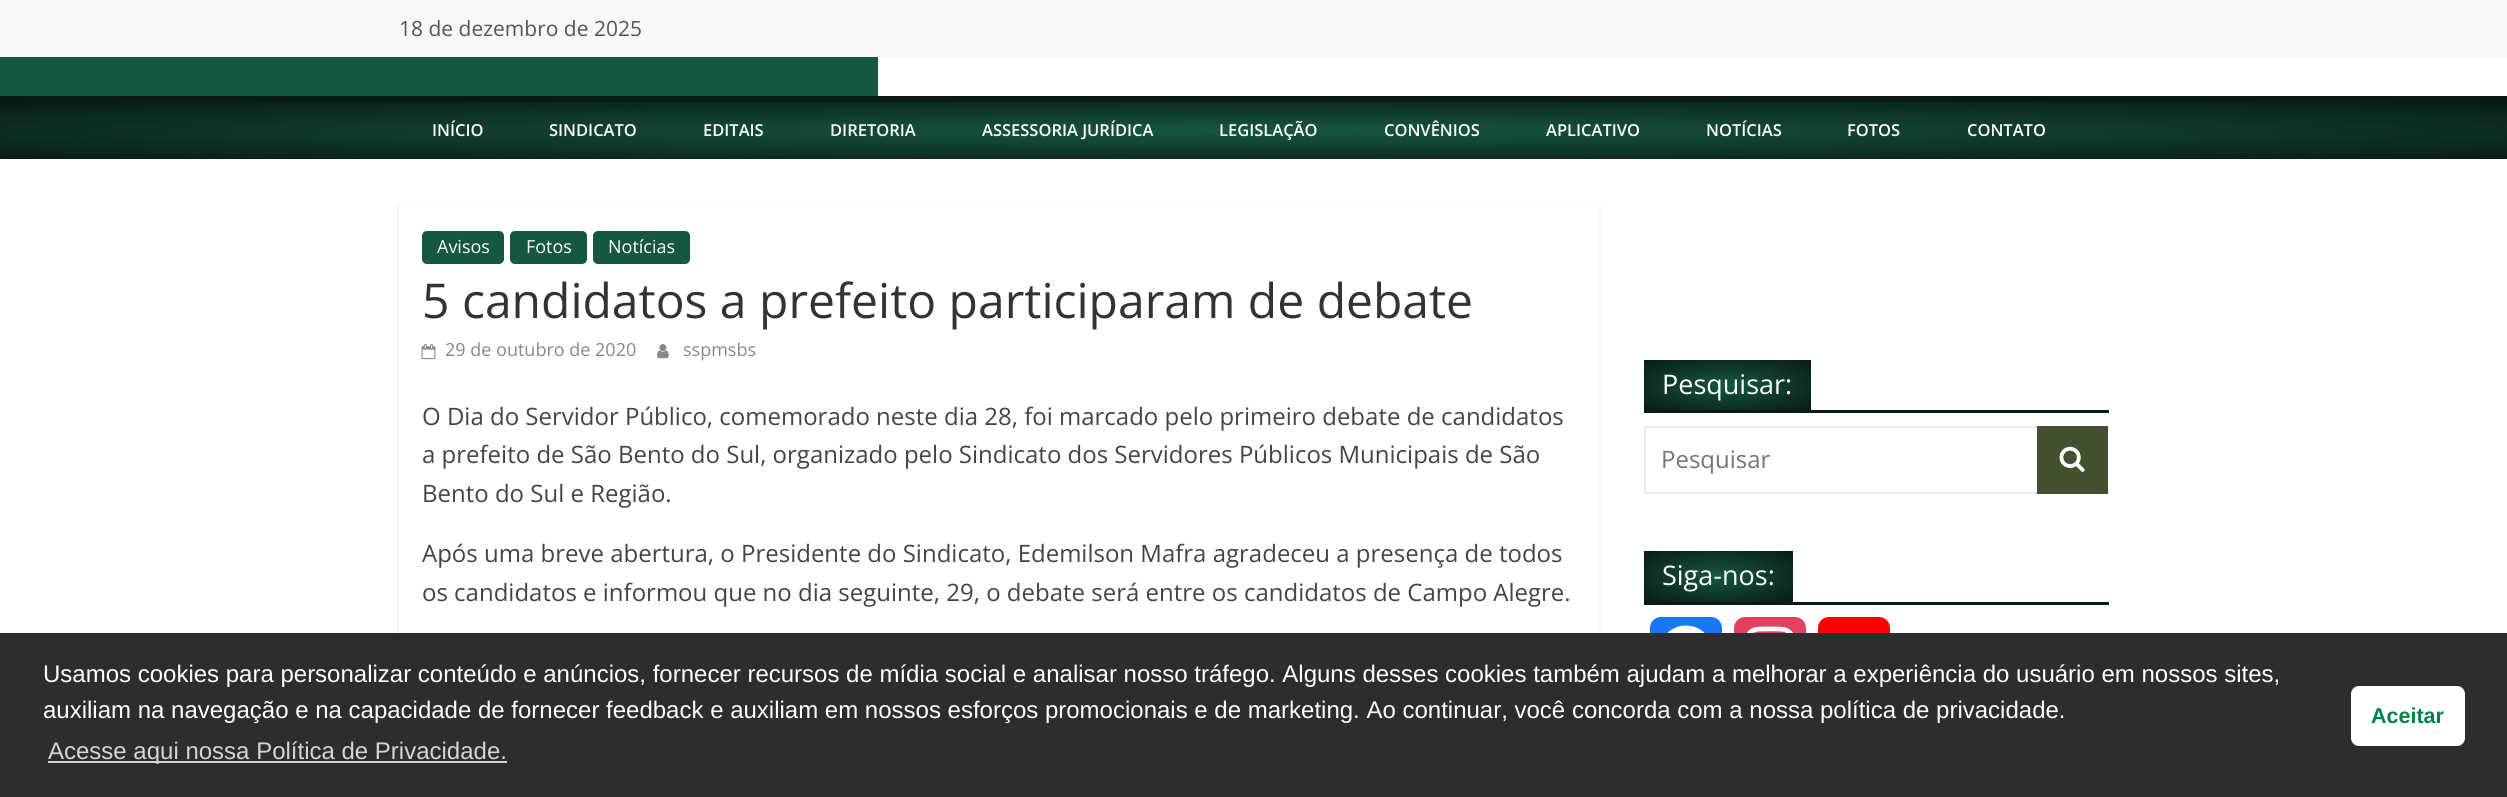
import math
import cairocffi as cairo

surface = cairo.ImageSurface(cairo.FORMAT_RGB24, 2507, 797)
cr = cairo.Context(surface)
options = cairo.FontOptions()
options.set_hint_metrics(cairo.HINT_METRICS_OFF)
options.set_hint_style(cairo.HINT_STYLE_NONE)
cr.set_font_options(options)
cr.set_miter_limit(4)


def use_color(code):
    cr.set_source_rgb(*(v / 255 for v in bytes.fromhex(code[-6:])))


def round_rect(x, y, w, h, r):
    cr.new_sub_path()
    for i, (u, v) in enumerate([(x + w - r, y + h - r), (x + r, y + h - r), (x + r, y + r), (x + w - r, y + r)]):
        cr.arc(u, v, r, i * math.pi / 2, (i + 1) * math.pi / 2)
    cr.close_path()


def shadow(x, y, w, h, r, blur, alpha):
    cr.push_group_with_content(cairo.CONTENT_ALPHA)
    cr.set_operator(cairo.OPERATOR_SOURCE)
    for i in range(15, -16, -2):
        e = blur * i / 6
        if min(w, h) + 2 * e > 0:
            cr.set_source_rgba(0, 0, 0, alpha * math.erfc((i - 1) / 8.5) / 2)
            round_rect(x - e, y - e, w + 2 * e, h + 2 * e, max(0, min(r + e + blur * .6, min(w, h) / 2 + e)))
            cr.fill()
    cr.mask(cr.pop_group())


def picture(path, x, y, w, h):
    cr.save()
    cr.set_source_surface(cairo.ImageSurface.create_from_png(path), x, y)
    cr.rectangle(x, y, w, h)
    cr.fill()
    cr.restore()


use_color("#165740")
cr.paint()
use_color("#ffffff")
cr.rectangle(878, 57, 1629, 39)
cr.fill()
use_color("#f8f8f8")
cr.rectangle(0, 0, 2507, 57)
cr.fill()
cr.select_font_face("Open Sans")
cr.set_font_size(21)
use_color("#555555")
cr.move_to(399, 36)
cr.show_text("18 de dezembro de 2025")
gradient = cairo.RadialGradient(0, 0, 0, 0, 0, 1)
gradient.set_matrix(cairo.Matrix(1 / 1773, 0, 0, 1 / 40, -1 * 1254 / 1773, -1 * 131 / 40))
gradient.add_color_stop_rgba(0, 0.086, 0.341, 0.255, 1)
gradient.add_color_stop_rgba(1, 0.031, 0.106, 0.078, 1)
cr.set_source(gradient)
cr.rectangle(0, 102, 2507, 57)
cr.fill()
use_color("#081b14")
cr.rectangle(0, 96, 2507, 6)
cr.fill()
cr.select_font_face("Open Sans SemiBold")
cr.set_font_size(16.5)
use_color("#ffffff")
cr.move_to(432, 136)
cr.show_text("INÍCIO")
cr.move_to(549, 136)
cr.show_text("SINDICATO")
cr.move_to(703, 136)
cr.show_text("EDITAIS")
cr.move_to(830, 136)
cr.show_text("DIRETORIA")
cr.move_to(982, 136)
cr.show_text("ASSESSORIA JURÍDICA")
cr.move_to(1219, 136)
cr.show_text("LEGISLAÇÃO")
cr.move_to(1384, 136)
cr.show_text("CONVÊNIOS")
cr.move_to(1546, 136)
cr.show_text("APLICATIVO")
cr.move_to(1706, 136)
cr.show_text("NOTÍCIAS")
cr.move_to(1847, 136)
cr.show_text("FOTOS")
cr.move_to(1967, 136)
cr.show_text("CONTATO")
cr.rectangle(0, 159, 2507, 474)
cr.fill()
cr.save()
cr.set_fill_rule(cairo.FILL_RULE_EVEN_ODD)
cr.new_path()
cr.move_to(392, 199)
cr.line_to(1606, 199)
cr.line_to(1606, 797)
cr.line_to(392, 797)
cr.close_path()
cr.move_to(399, 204)
cr.line_to(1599, 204)
cr.line_to(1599, 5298)
cr.line_to(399, 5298)
cr.close_path()
cr.clip()
use_color("#000000")
shadow(399, 206, 1200, 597, 0, 2, 0.1)
cr.restore()
use_color("#165741")
round_rect(422, 231, 82, 33, 5)
cr.fill()
cr.select_font_face("Open Sans")
cr.set_font_size(18)
use_color("#ffffff")
cr.move_to(437, 253)
cr.show_text("Avisos")
use_color("#165741")
round_rect(510, 231, 77, 33, 5)
cr.fill()
use_color("#ffffff")
cr.move_to(526, 253)
cr.show_text("Fotos")
use_color("#165741")
round_rect(593, 231, 97, 33, 5)
cr.fill()
use_color("#ffffff")
cr.move_to(608, 253)
cr.show_text("Notícias")
cr.set_font_size(48)
use_color("#333333")
cr.move_to(422, 318)
cr.show_text("5 candidatos a prefeito participaram de debate")
picture("img1.png", 421, 344, 15, 16)
cr.set_font_size(18)
use_color("#888888")
cr.move_to(445, 356)
cr.show_text("29 de outubro de 2020")
picture("img2.png", 657, 344, 12, 15)
cr.move_to(683, 356)
cr.show_text("sspmsbs")
cr.set_font_size(24)
use_color("#444444")
cr.move_to(422, 425)
cr.show_text("O Dia do Servidor Público, comemorado neste dia 28, foi marcado pelo primeiro debate de candidatos")
cr.move_to(422, 463)
cr.show_text("a prefeito de São Bento do Sul, organizado pelo Sindicato dos Servidores Públicos Municipais de São")
cr.move_to(422, 502)
cr.show_text("Bento do Sul e Região.")
cr.move_to(422, 562)
cr.show_text("Após uma breve abertura, o Presidente do Sindicato, Edemilson Mafra agradeceu a presença de todos")
cr.move_to(422, 601)
cr.show_text("os candidatos e informou que no dia seguinte, 29, o debate será entre os candidatos de Campo Alegre.")
use_color("#081b14")
cr.rectangle(1644, 410, 465, 3)
cr.fill()
gradient = cairo.RadialGradient(0, 0, 0, 0, 0, 1)
gradient.set_matrix(cairo.Matrix(1 / 118, 0, 0, 1 / 35, -1 * 1727 / 118, -1 * 385 / 35))
gradient.add_color_stop_rgba(0, 0.086, 0.341, 0.255, 1)
gradient.add_color_stop_rgba(1, 0.031, 0.106, 0.078, 1)
cr.set_source(gradient)
cr.rectangle(1644, 360, 167, 50)
cr.fill()
cr.set_font_size(27)
use_color("#ffffff")
cr.move_to(1662, 394)
cr.show_text("Pesquisar:")
cr.rectangle(1645, 427, 394, 66)
use_color("#eaeaea")
cr.stroke()
cr.set_font_size(24)
use_color("#757575")
cr.move_to(1661, 468)
cr.show_text("Pesquisar")
use_color("#42502f")
cr.rectangle(2037, 426, 71, 68)
cr.fill()
picture("img3.png", 2059, 446, 26, 26)
use_color("#081b14")
cr.rectangle(1644, 602, 465, 3)
cr.fill()
gradient = cairo.RadialGradient(0, 0, 0, 0, 0, 1)
gradient.set_matrix(cairo.Matrix(1 / 105, 0, 0, 1 / 36, -1 * 1718 / 105, -1 * 576 / 36))
gradient.add_color_stop_rgba(0, 0.086, 0.341, 0.255, 1)
gradient.add_color_stop_rgba(1, 0.031, 0.106, 0.078, 1)
cr.set_source(gradient)
cr.rectangle(1644, 551, 149, 51)
cr.fill()
cr.set_font_size(27)
use_color("#ffffff")
cr.move_to(1662, 585)
cr.show_text("Siga-nos:")
use_color("#1877f2")
round_rect(1650, 617, 72, 72, 11)
cr.fill()
picture("img4.png", 1667, 625, 38, 8)
use_color("#e4405f")
round_rect(1734, 617, 72, 72, 11)
cr.fill()
picture("img5.png", 1746, 626, 48, 7)
use_color("#ff0000")
round_rect(1818, 617, 72, 72, 11)
cr.fill()
use_color("#2d2d2d")
cr.rectangle(0, 633, 2507, 164)
cr.fill()
cr.select_font_face("Liberation Sans")
cr.set_font_size(24)
use_color("#ffffff")
cr.move_to(43, 682)
cr.show_text("Usamos cookies para personalizar conteúdo e anúncios, fornecer recursos de mídia social e analisar nosso tráfego. Alguns desses cookies também ajudam a melhorar a experiência do usuário em nossos sites,")
cr.move_to(43, 718)
cr.show_text("auxiliam na navegação e na capacidade de fornecer feedback e auxiliam em nossos esforços promocionais e de marketing. Ao continuar, você concorda com a nossa política de privacidade.")
use_color("#d5d5d5")
cr.rectangle(48, 761, 459, 2)
cr.fill()
cr.move_to(48, 759)
cr.show_text("Acesse aqui nossa Política de Privacidade.")
use_color("#ffffff")
round_rect(2351, 686, 114, 60, 8)
cr.fill()
cr.select_font_face("Liberation Sans", cairo.FONT_SLANT_NORMAL, cairo.FONT_WEIGHT_BOLD)
cr.set_font_size(21.5)
use_color("#008349")
cr.move_to(2371, 723)
cr.show_text("Aceitar")
surface.write_to_png("result.png")
